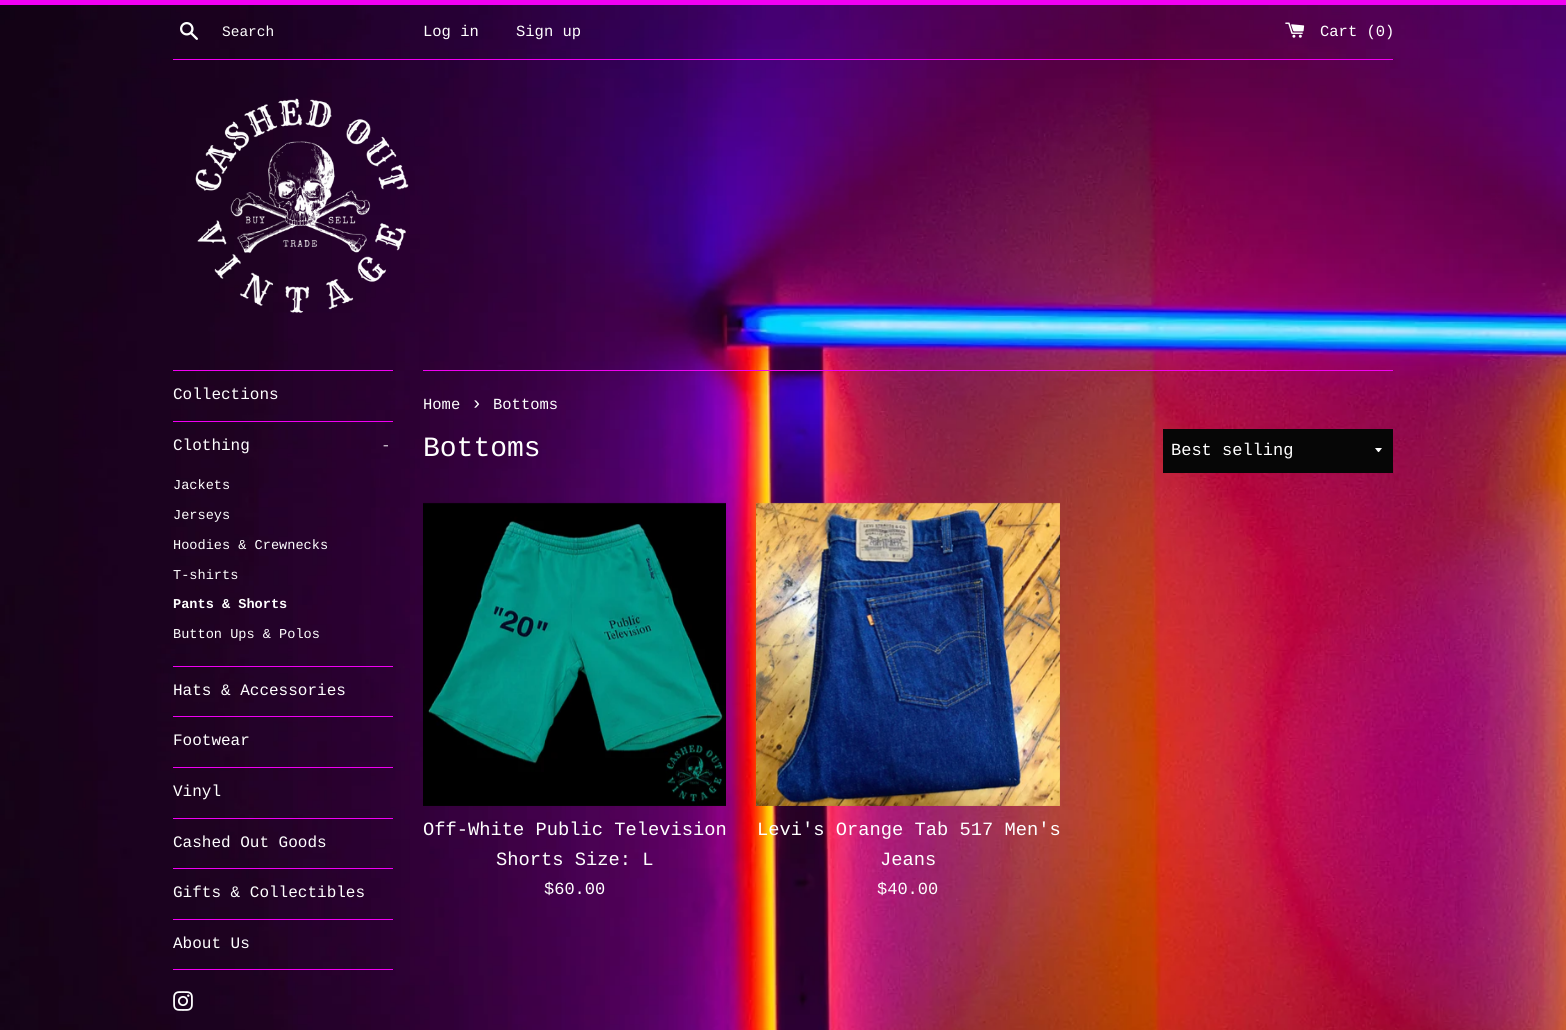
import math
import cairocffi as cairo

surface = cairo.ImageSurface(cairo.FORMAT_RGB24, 1566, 1030)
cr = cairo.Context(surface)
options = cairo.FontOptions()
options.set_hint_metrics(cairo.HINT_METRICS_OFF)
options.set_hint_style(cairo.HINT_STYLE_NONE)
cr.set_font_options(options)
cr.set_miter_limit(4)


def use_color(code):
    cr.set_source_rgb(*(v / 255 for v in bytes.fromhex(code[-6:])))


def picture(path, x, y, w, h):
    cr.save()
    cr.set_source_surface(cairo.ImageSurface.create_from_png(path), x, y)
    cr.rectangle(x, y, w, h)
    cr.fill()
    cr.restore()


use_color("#ffffff")
cr.paint()
picture("img1.png", 0, 5, 1566, 1025)
use_color("#f100f3")
cr.rectangle(0, 0, 1566, 5)
cr.fill()
picture("img2.png", 180, 22, 18, 18)
cr.select_font_face("Liberation Mono")
cr.set_font_size(14.5)
use_color("#ffffff")
cr.move_to(222, 36)
cr.show_text("Search")
cr.set_font_size(15.5)
cr.move_to(423, 36)
cr.show_text("Log in")
cr.move_to(516, 36)
cr.show_text("Sign up")
picture("img3.png", 1285, 22, 20, 16)
cr.move_to(1320, 36)
cr.show_text("Cart (0)")
use_color("#f100f3")
cr.rectangle(173, 59, 1220, 1)
cr.fill()
picture("img4.png", 195, 98, 214, 215)
cr.rectangle(173, 370, 220, 1)
cr.fill()
cr.rectangle(173, 421, 220, 1)
cr.fill()
cr.set_font_size(16)
use_color("#ffffff")
cr.move_to(173, 399)
cr.show_text("Collections")
use_color("#f100f3")
cr.rectangle(173, 666, 220, 1)
cr.fill()
use_color("#ffffff")
cr.move_to(173, 450)
cr.show_text("Clothing")
use_color("#d5ccd6")
cr.move_to(381, 450)
cr.show_text("-")
cr.set_font_size(13.6)
use_color("#ffffff")
cr.move_to(173, 489)
cr.show_text("Jackets")
cr.move_to(173, 519)
cr.show_text("Jerseys")
cr.move_to(173, 549)
cr.show_text("Hoodies & Crewnecks")
cr.move_to(173, 579)
cr.show_text("T-shirts")
cr.select_font_face("Liberation Mono", cairo.FONT_SLANT_NORMAL, cairo.FONT_WEIGHT_BOLD)
cr.move_to(173, 608)
cr.show_text("Pants & Shorts")
cr.select_font_face("Liberation Mono")
cr.move_to(173, 638)
cr.show_text("Button Ups & Polos")
use_color("#f100f3")
cr.rectangle(173, 716, 220, 1)
cr.fill()
cr.set_font_size(16)
use_color("#ffffff")
cr.move_to(173, 695)
cr.show_text("Hats & Accessories")
use_color("#f100f3")
cr.rectangle(173, 767, 220, 1)
cr.fill()
use_color("#ffffff")
cr.move_to(173, 745)
cr.show_text("Footwear")
use_color("#f100f3")
cr.rectangle(173, 818, 220, 1)
cr.fill()
use_color("#ffffff")
cr.move_to(173, 796)
cr.show_text("Vinyl")
use_color("#f100f3")
cr.rectangle(173, 868, 220, 1)
cr.fill()
use_color("#ffffff")
cr.move_to(173, 847)
cr.show_text("Cashed Out Goods")
use_color("#f100f3")
cr.rectangle(173, 919, 220, 1)
cr.fill()
use_color("#ffffff")
cr.move_to(173, 897)
cr.show_text("Gifts & Collectibles")
use_color("#f100f3")
cr.rectangle(173, 969, 220, 1)
cr.fill()
use_color("#ffffff")
cr.move_to(173, 948)
cr.show_text("About Us")
picture("img5.png", 173, 991, 20, 20)
use_color("#f100f3")
cr.rectangle(423, 370, 970, 1)
cr.fill()
cr.set_font_size(15.5)
use_color("#ffffff")
cr.move_to(423, 409)
cr.show_text("Home")
cr.set_font_size(18.75)
cr.move_to(471, 409)
cr.show_text("›")
cr.set_font_size(15.5)
cr.move_to(493, 409)
cr.show_text("Bottoms")
cr.set_font_size(28)
cr.move_to(423, 456)
cr.show_text("Bottoms")
use_color("#060606")
cr.rectangle(1163, 429, 230, 44)
cr.fill()
use_color("#ffffff")
cr.new_path()
cr.move_to(1375, 448)
cr.curve_to(1379.5, 453.5, 1377.5, 453.5, 1382, 448)
cr.close_path()
cr.fill()
cr.set_font_size(17)
cr.move_to(1171, 455)
cr.show_text("Best selling")
picture("img6.png", 423, 502, 303, 304)
cr.set_font_size(18.75)
cr.move_to(423, 835)
cr.show_text("Off-White Public Television")
cr.move_to(496, 865)
cr.show_text("Shorts Size: L")
cr.set_font_size(17)
cr.move_to(544, 894)
cr.show_text("$60.00")
picture("img7.png", 756, 502, 304, 304)
cr.set_font_size(18.75)
cr.move_to(757, 835)
cr.show_text("Levi's Orange Tab 517 Men's")
cr.move_to(880, 865)
cr.show_text("Jeans")
cr.set_font_size(17)
cr.move_to(877, 894)
cr.show_text("$40.00")
surface.write_to_png("result.png")
